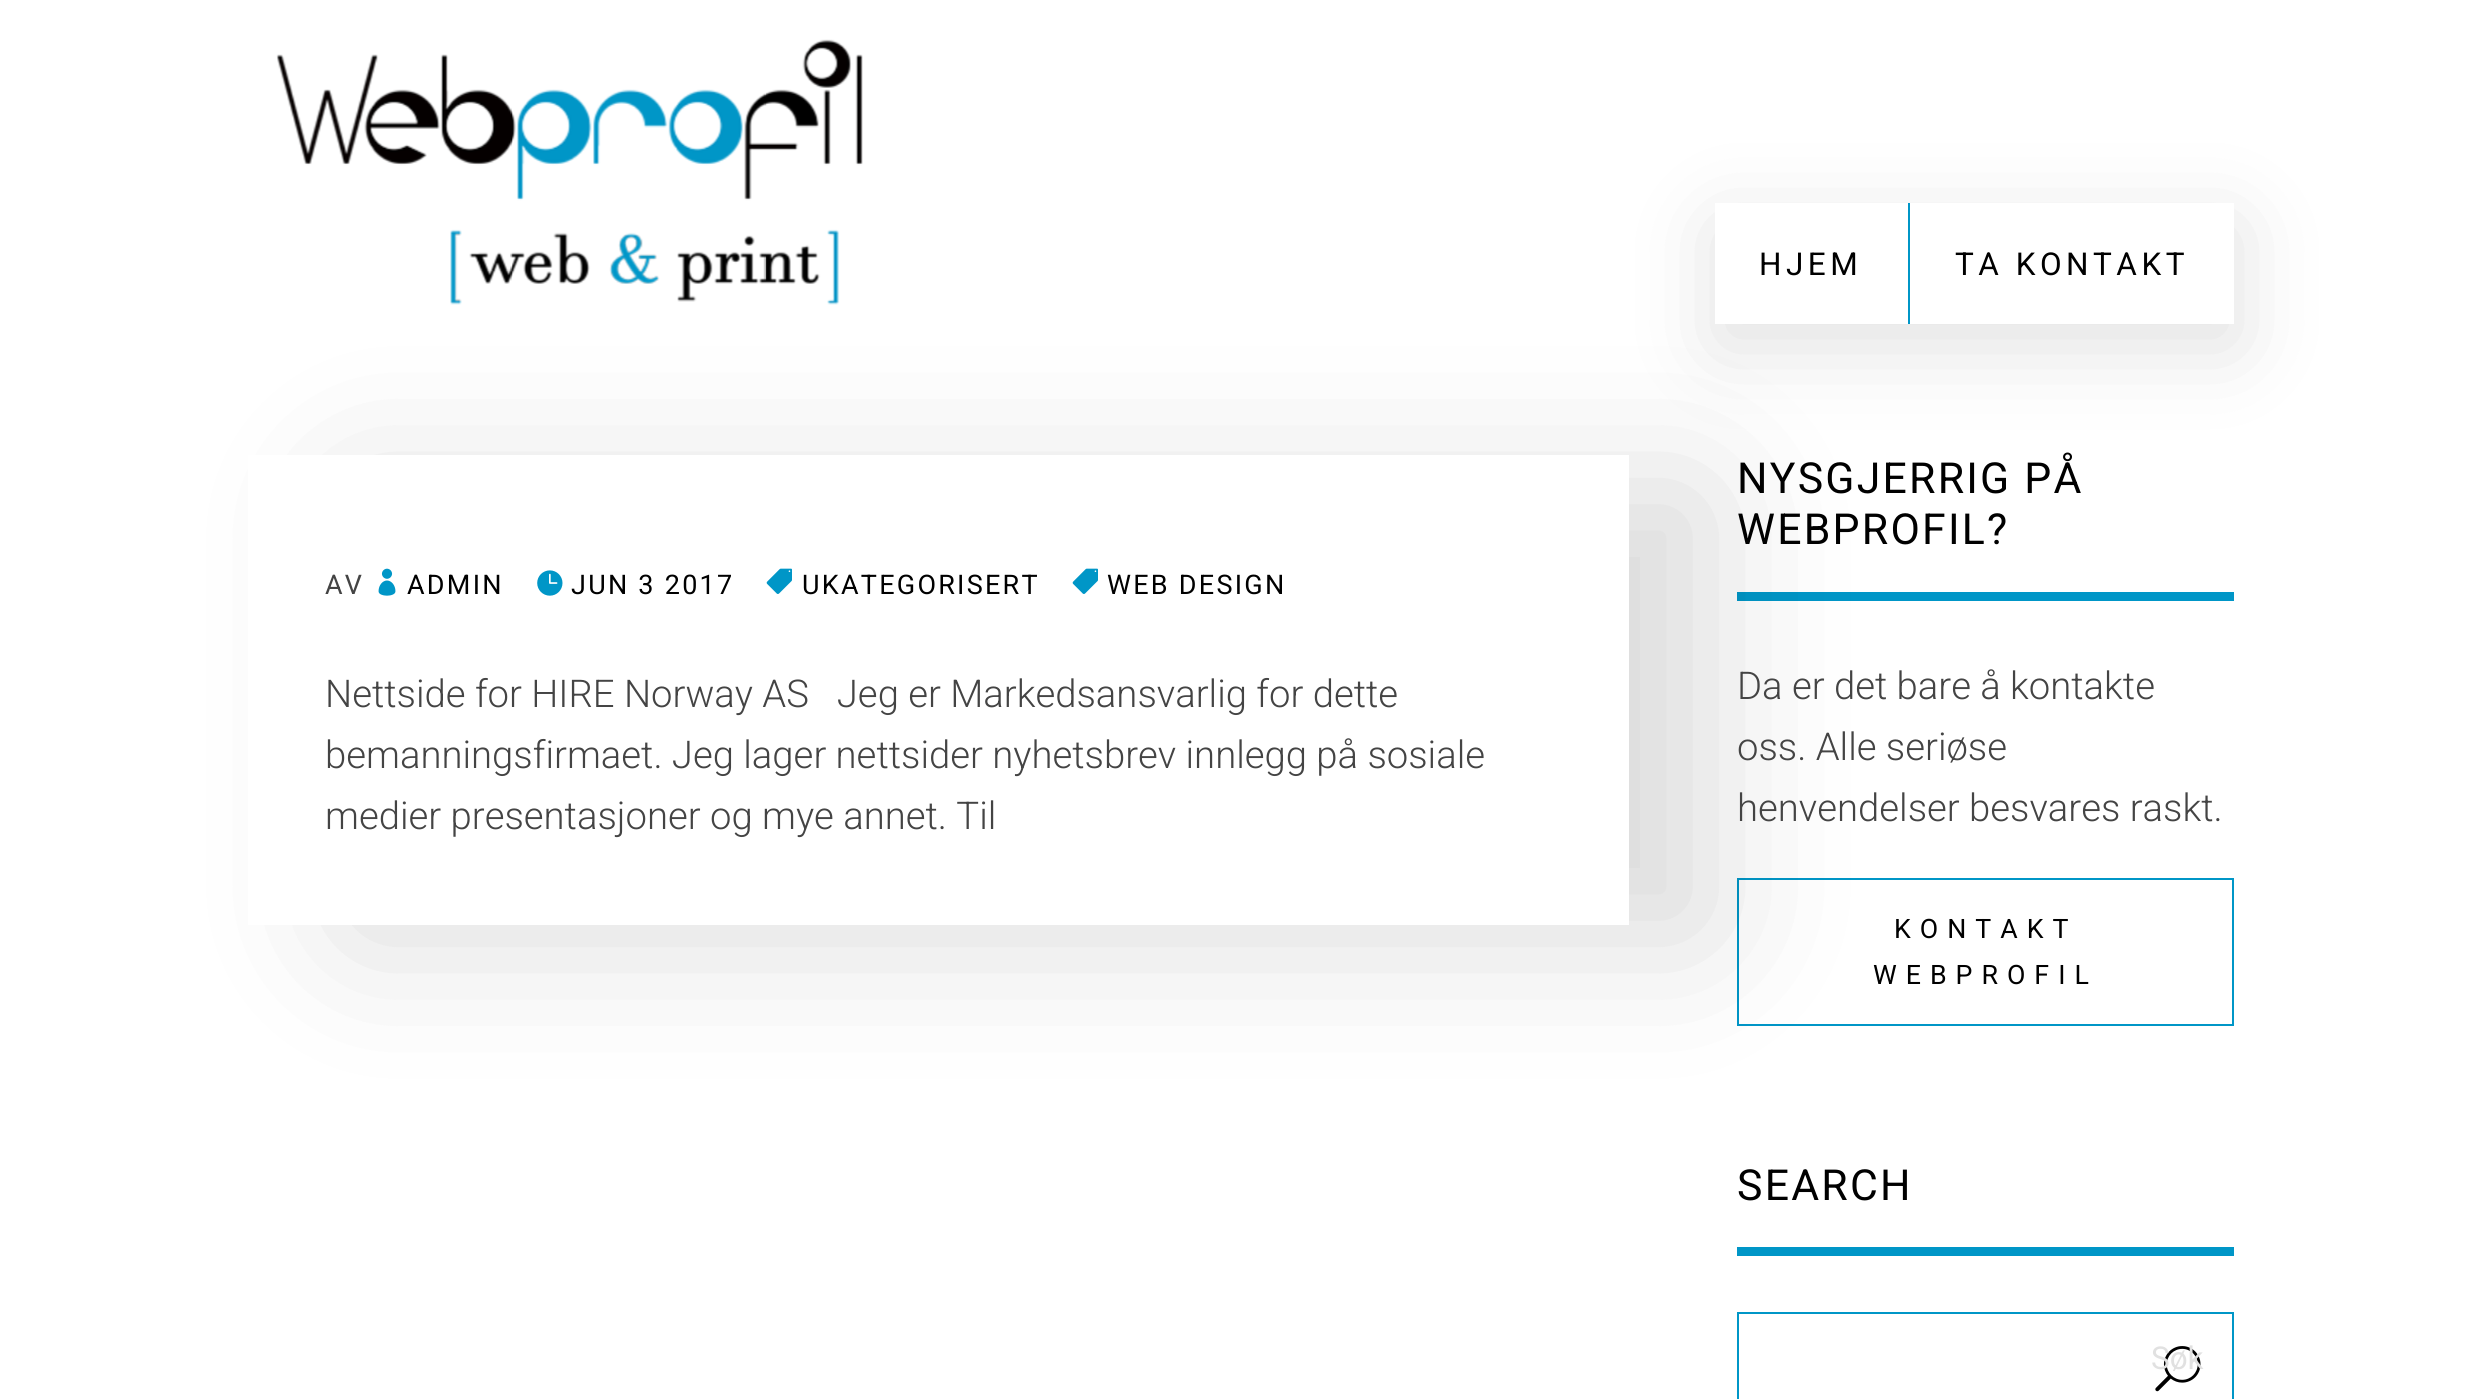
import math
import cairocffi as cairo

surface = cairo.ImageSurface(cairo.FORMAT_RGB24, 2481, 1399)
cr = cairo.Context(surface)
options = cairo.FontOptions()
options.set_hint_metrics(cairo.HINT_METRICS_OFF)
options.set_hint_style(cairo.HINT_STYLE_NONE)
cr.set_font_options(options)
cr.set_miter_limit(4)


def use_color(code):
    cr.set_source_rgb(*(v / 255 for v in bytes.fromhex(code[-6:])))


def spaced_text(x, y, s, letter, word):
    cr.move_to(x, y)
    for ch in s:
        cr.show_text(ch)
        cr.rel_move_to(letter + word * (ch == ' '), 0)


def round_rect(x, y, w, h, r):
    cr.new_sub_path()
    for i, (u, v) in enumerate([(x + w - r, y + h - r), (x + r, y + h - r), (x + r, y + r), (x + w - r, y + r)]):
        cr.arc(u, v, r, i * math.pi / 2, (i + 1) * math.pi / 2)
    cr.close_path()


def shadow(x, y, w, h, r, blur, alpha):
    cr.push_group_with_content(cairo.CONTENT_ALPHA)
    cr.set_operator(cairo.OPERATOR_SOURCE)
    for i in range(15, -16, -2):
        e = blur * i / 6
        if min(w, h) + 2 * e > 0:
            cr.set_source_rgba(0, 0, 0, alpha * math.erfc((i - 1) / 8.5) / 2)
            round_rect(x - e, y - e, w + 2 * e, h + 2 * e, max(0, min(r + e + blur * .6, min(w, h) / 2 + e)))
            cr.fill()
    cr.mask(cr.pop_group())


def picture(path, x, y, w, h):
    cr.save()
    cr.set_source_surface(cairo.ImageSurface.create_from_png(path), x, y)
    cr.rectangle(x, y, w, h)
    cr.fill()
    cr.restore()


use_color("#ffffff")
cr.paint()
use_color("#0096c7")
cr.rectangle(1737, 592, 497, 9)
cr.fill()
cr.rectangle(1738, 879, 495, 146)
cr.stroke()
use_color("#000000")
shadow(351, 491, 1355, 443, 0, 79, 0.15)
picture("img1.png", 276, 39, 587, 266)
use_color("#ffffff")
cr.rectangle(248, 455, 1381, 470)
cr.fill()
cr.save()
cr.set_fill_rule(cairo.FILL_RULE_EVEN_ODD)
cr.new_path()
cr.move_to(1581, 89)
cr.line_to(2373, 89)
cr.line_to(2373, 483)
cr.line_to(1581, 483)
cr.close_path()
cr.move_to(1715, 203)
cr.line_to(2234, 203)
cr.line_to(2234, 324)
cr.line_to(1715, 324)
cr.close_path()
cr.clip()
use_color("#000000")
shadow(1717, 225, 520, 122, 0, 45, 0.12)
cr.restore()
cr.select_font_face("Roboto")
cr.set_font_size(31.5)
use_color("#000000")
spaced_text(1759, 275, "HJEM", 4.5, 0)
use_color("#0096c7")
cr.rectangle(1908, 203, 2, 121)
cr.fill()
use_color("#000000")
spaced_text(1955, 275, "TA KONTAKT", 4.5, 0)
cr.set_font_size(27)
use_color("#444444")
spaced_text(325, 594, "AV", 2.25, 0)
picture("img2.png", 378, 568, 18, 28)
use_color("#000000")
spaced_text(407, 594, "ADMIN", 2.25, 0)
picture("img3.png", 537, 570, 26, 26)
spaced_text(571, 594, "JUN 3 2017", 2.25, 0)
picture("img4.png", 766, 568, 26, 26)
spaced_text(802, 594, "UKATEGORISERT", 2.25, 0)
picture("img4.png", 1072, 568, 26, 26)
spaced_text(1107, 594, "WEB DESIGN", 2.25, 0)
cr.select_font_face("Roboto Light")
cr.set_font_size(38.25)
use_color("#444444")
cr.move_to(325, 707)
cr.show_text("Nettside for HIRE Norway AS   Jeg er Markedsansvarlig for dette")
cr.move_to(325, 768)
cr.show_text("bemanningsfirmaet. Jeg lager nettsider nyhetsbrev innlegg på sosiale")
cr.move_to(325, 829)
cr.show_text("medier presentasjoner og mye annet. Til")
cr.select_font_face("Roboto")
cr.set_font_size(42.75)
use_color("#000000")
spaced_text(1737, 493, "NYSGJERRIG PÅ", 2.25, 0)
spaced_text(1737, 544, "WEBPROFIL?", 2.25, 0)
cr.select_font_face("Roboto Light")
cr.set_font_size(38.25)
use_color("#444444")
cr.move_to(1737, 699)
cr.show_text("Da er det bare å kontakte")
cr.move_to(1737, 760)
cr.show_text("oss. Alle seriøse")
cr.move_to(1737, 821)
cr.show_text("henvendelser besvares raskt.")
cr.select_font_face("Roboto")
cr.set_font_size(26.75)
use_color("#000000")
spaced_text(1894, 938, "KONTAKT", 9, 0)
spaced_text(1873, 984, "WEBPROFIL", 9, 0)
cr.set_font_size(42.75)
spaced_text(1737, 1200, "SEARCH", 2.25, 0)
use_color("#0096c7")
cr.rectangle(1737, 1247, 497, 9)
cr.fill()
cr.rectangle(1738, 1313, 495, 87)
cr.stroke()
picture("img5.png", 2155, 1346, 46, 46)
cr.set_font_size(31.5)
use_color("#e1e1e1")
cr.move_to(2151, 1369)
cr.show_text("Søk")
surface.write_to_png("result.png")
